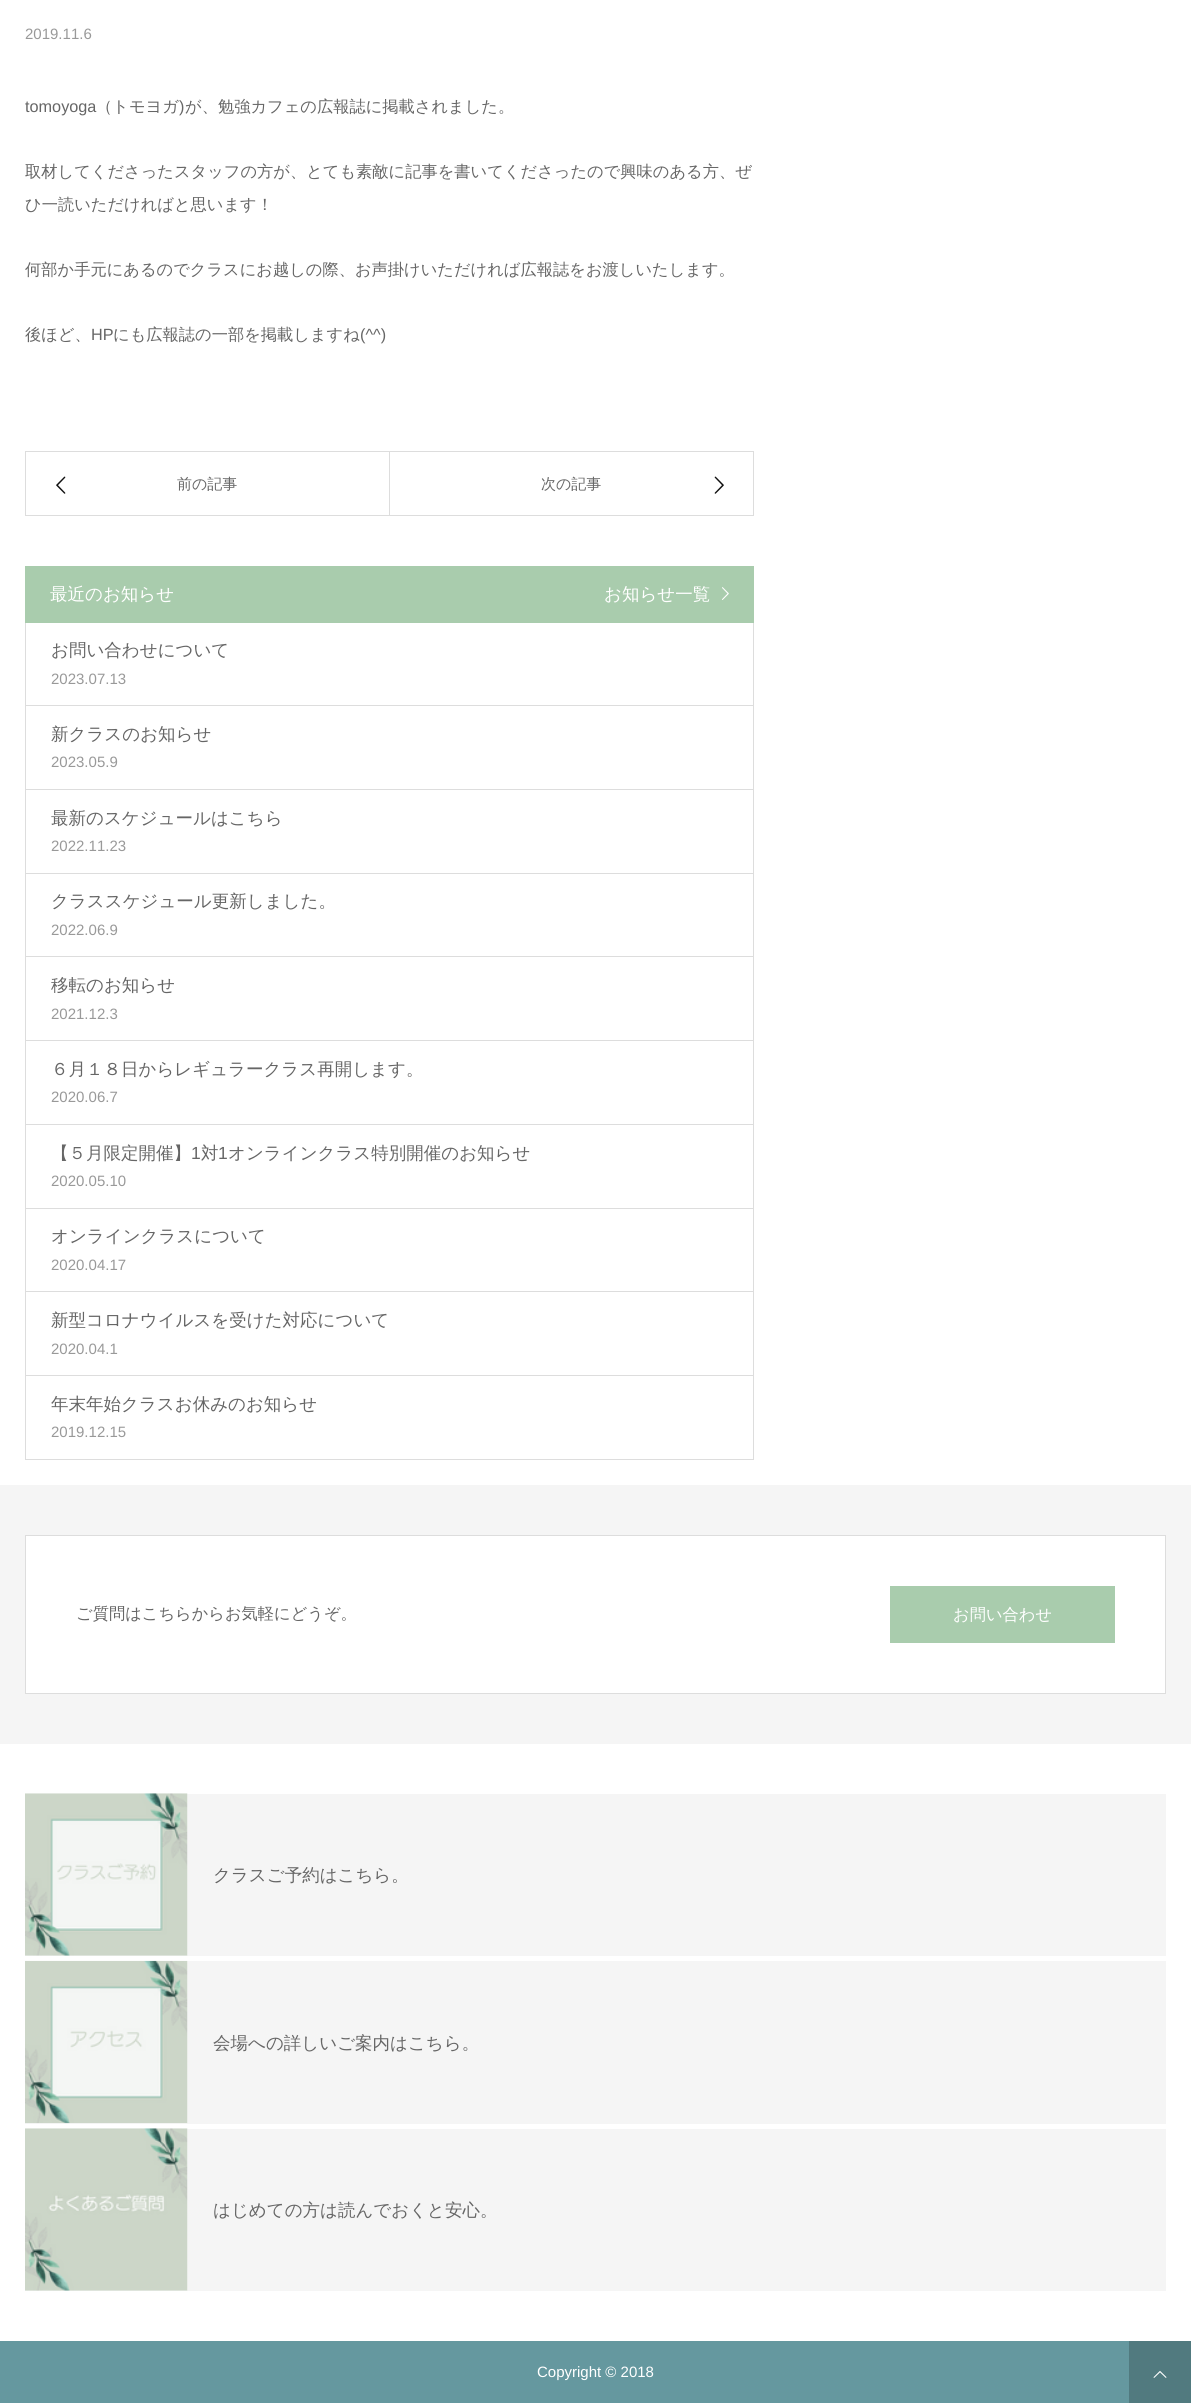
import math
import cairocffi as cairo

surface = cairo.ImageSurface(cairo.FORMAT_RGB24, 1191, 2403)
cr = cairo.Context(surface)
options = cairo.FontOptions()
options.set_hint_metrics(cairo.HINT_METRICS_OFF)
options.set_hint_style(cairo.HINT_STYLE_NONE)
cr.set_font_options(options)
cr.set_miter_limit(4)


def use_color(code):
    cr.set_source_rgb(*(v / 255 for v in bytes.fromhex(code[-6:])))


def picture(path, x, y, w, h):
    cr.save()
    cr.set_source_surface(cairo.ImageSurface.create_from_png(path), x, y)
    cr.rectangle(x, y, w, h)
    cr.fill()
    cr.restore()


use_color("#ffffff")
cr.paint()
cr.select_font_face("Liberation Sans")
cr.set_font_size(15)
use_color("#999999")
cr.move_to(25, 39)
cr.show_text("2019.11.6")
cr.set_font_size(16.25)
use_color("#666666")
cr.move_to(25, 112)
cr.show_text("tomoyoga")
cr.select_font_face("WenQuanYi Zen Hei Medium")
cr.move_to(96, 112)
cr.show_text("（トモヨガ")
cr.select_font_face("Liberation Sans")
cr.move_to(179, 112)
cr.show_text(")")
cr.select_font_face("WenQuanYi Zen Hei Medium")
cr.move_to(185, 112)
cr.show_text("が、勉強カフェの広報誌に掲載されました。")
cr.move_to(25, 177)
cr.show_text("取材してくださったスタッフの方が、とても素敵に記事を書いてくださったので興味のある方、ぜ")
cr.move_to(25, 210)
cr.show_text("ひ一読いただければと思います！")
cr.move_to(25, 275)
cr.show_text("何部か手元にあるのでクラスにお越しの際、お声掛けいただければ広報誌をお渡しいたします。")
cr.move_to(25, 340)
cr.show_text("後ほど、")
cr.select_font_face("Liberation Sans")
cr.move_to(91, 340)
cr.show_text("HP")
cr.select_font_face("WenQuanYi Zen Hei Medium")
cr.move_to(113, 340)
cr.show_text("にも広報誌の一部を掲載しますね")
cr.select_font_face("Liberation Sans")
cr.move_to(360, 340)
cr.show_text("(^^)")
cr.rectangle(25.5, 451.5, 364, 64)
use_color("#dddddd")
cr.set_line_width(1)
cr.stroke()
picture("img1.png", 56, 476, 10, 18)
cr.select_font_face("WenQuanYi Zen Hei Medium")
cr.set_font_size(15)
use_color("#666666")
cr.move_to(177, 489)
cr.show_text("前の記事")
use_color("#dddddd")
cr.rectangle(390, 451, 364, 1)
cr.fill()
cr.rectangle(753, 451, 1, 65)
cr.fill()
cr.rectangle(390, 515, 364, 1)
cr.fill()
use_color("#666666")
cr.move_to(541, 489)
cr.show_text("次の記事")
picture("img2.png", 714, 476, 10, 18)
use_color("#a9ccad")
cr.rectangle(25, 566, 729, 57)
cr.fill()
cr.set_font_size(17.5)
use_color("#ffffff")
cr.move_to(50, 600)
cr.show_text("最近のお知らせ")
cr.move_to(604, 600)
cr.show_text("お知らせ一覧")
picture("img3.png", 722, 587, 7, 13)
use_color("#dddddd")
cr.rectangle(753, 623, 1, 837)
cr.fill()
cr.rectangle(25, 1459, 729, 1)
cr.fill()
cr.rectangle(25, 623, 1, 837)
cr.fill()
cr.rectangle(26, 705, 727, 1)
cr.fill()
use_color("#666666")
cr.move_to(51, 656)
cr.show_text("お問い合わせについて")
cr.select_font_face("Liberation Sans")
cr.set_font_size(15)
use_color("#999999")
cr.move_to(51, 684)
cr.show_text("2023.07.13")
use_color("#dddddd")
cr.rectangle(26, 789, 727, 1)
cr.fill()
cr.select_font_face("WenQuanYi Zen Hei Medium")
cr.set_font_size(17.5)
use_color("#666666")
cr.move_to(51, 740)
cr.show_text("新クラスのお知らせ")
cr.select_font_face("Liberation Sans")
cr.set_font_size(15)
use_color("#999999")
cr.move_to(51, 767)
cr.show_text("2023.05.9")
use_color("#dddddd")
cr.rectangle(26, 873, 727, 1)
cr.fill()
cr.select_font_face("WenQuanYi Zen Hei Medium")
cr.set_font_size(17.5)
use_color("#666666")
cr.move_to(51, 824)
cr.show_text("最新のスケジュールはこちら")
cr.select_font_face("Liberation Sans")
cr.set_font_size(15)
use_color("#999999")
cr.move_to(51, 851)
cr.show_text("2022.11.23")
use_color("#dddddd")
cr.rectangle(26, 956, 727, 1)
cr.fill()
cr.select_font_face("WenQuanYi Zen Hei Medium")
cr.set_font_size(17.5)
use_color("#666666")
cr.move_to(51, 907)
cr.show_text("クラススケジュール更新しました。")
cr.select_font_face("Liberation Sans")
cr.set_font_size(15)
use_color("#999999")
cr.move_to(51, 935)
cr.show_text("2022.06.9")
use_color("#dddddd")
cr.rectangle(26, 1040, 727, 1)
cr.fill()
cr.select_font_face("WenQuanYi Zen Hei Medium")
cr.set_font_size(17.5)
use_color("#666666")
cr.move_to(51, 991)
cr.show_text("移転のお知らせ")
cr.select_font_face("Liberation Sans")
cr.set_font_size(15)
use_color("#999999")
cr.move_to(51, 1019)
cr.show_text("2021.12.3")
use_color("#dddddd")
cr.rectangle(26, 1124, 727, 1)
cr.fill()
cr.select_font_face("WenQuanYi Zen Hei Medium")
cr.set_font_size(17.5)
use_color("#666666")
cr.move_to(51, 1075)
cr.show_text("６月１８日からレギュラークラス再開します。")
cr.select_font_face("Liberation Sans")
cr.set_font_size(15)
use_color("#999999")
cr.move_to(51, 1102)
cr.show_text("2020.06.7")
use_color("#dddddd")
cr.rectangle(26, 1208, 727, 1)
cr.fill()
cr.select_font_face("WenQuanYi Zen Hei Medium")
cr.set_font_size(17.5)
use_color("#666666")
cr.move_to(51, 1159)
cr.show_text("【５月限定開催】")
cr.select_font_face("Liberation Sans")
cr.move_to(191, 1159)
cr.show_text("1")
cr.select_font_face("WenQuanYi Zen Hei Medium")
cr.move_to(201, 1159)
cr.show_text("対")
cr.select_font_face("Liberation Sans")
cr.move_to(218, 1159)
cr.show_text("1")
cr.select_font_face("WenQuanYi Zen Hei Medium")
cr.move_to(228, 1159)
cr.show_text("オンラインクラス特別開催のお知らせ")
cr.select_font_face("Liberation Sans")
cr.set_font_size(15)
use_color("#999999")
cr.move_to(51, 1186)
cr.show_text("2020.05.10")
use_color("#dddddd")
cr.rectangle(26, 1291, 727, 1)
cr.fill()
cr.select_font_face("WenQuanYi Zen Hei Medium")
cr.set_font_size(17.5)
use_color("#666666")
cr.move_to(51, 1242)
cr.show_text("オンラインクラスについて")
cr.select_font_face("Liberation Sans")
cr.set_font_size(15)
use_color("#999999")
cr.move_to(51, 1270)
cr.show_text("2020.04.17")
use_color("#dddddd")
cr.rectangle(26, 1375, 727, 1)
cr.fill()
cr.select_font_face("WenQuanYi Zen Hei Medium")
cr.set_font_size(17.5)
use_color("#666666")
cr.move_to(51, 1326)
cr.show_text("新型コロナウイルスを受けた対応について")
cr.select_font_face("Liberation Sans")
cr.set_font_size(15)
use_color("#999999")
cr.move_to(51, 1354)
cr.show_text("2020.04.1")
cr.select_font_face("WenQuanYi Zen Hei Medium")
cr.set_font_size(17.5)
use_color("#666666")
cr.move_to(51, 1410)
cr.show_text("年末年始クラスお休みのお知らせ")
cr.select_font_face("Liberation Sans")
cr.set_font_size(15)
use_color("#999999")
cr.move_to(51, 1437)
cr.show_text("2019.12.15")
use_color("#f5f5f5")
cr.rectangle(0, 1485, 1191, 259)
cr.fill()
use_color("#ffffff")
cr.rectangle(25.5, 1535.5, 1140, 158)
cr.fill_preserve()
use_color("#dddddd")
cr.stroke()
cr.select_font_face("WenQuanYi Zen Hei Medium")
cr.set_font_size(16.25)
use_color("#666666")
cr.move_to(76, 1619)
cr.show_text("ご質問はこちらからお気軽にどうぞ。")
use_color("#a9ccad")
cr.rectangle(890, 1586, 225, 57)
cr.fill()
use_color("#ffffff")
cr.move_to(953, 1620)
cr.show_text("お問い合わせ")
use_color("#f5f5f5")
cr.rectangle(25, 1794, 1141, 162)
cr.fill()
picture("img4.png", 25, 1793, 163, 163)
cr.set_font_size(17.5)
use_color("#666666")
cr.move_to(213, 1881)
cr.show_text("クラスご予約はこちら。")
use_color("#f5f5f5")
cr.rectangle(25, 1961, 1141, 163)
cr.fill()
picture("img5.png", 25, 1960, 163, 164)
use_color("#666666")
cr.move_to(213, 2049)
cr.show_text("会場への詳しいご案内はこちら。")
use_color("#f5f5f5")
cr.rectangle(25, 2129, 1141, 162)
cr.fill()
picture("img6.png", 25, 2128, 163, 163)
use_color("#666666")
cr.move_to(213, 2216)
cr.show_text("はじめての方は読んでおくと安心。")
use_color("#65989f")
cr.rectangle(0, 2341, 1129, 62)
cr.fill()
cr.select_font_face("Liberation Sans")
cr.set_font_size(15)
use_color("#ffffff")
cr.move_to(537, 2377)
cr.show_text("Copyright © 2018")
use_color("#517a7f")
cr.rectangle(1129, 2341, 62, 62)
cr.fill()
picture("img7.png", 1153, 2371, 14, 7)
surface.write_to_png("result.png")
